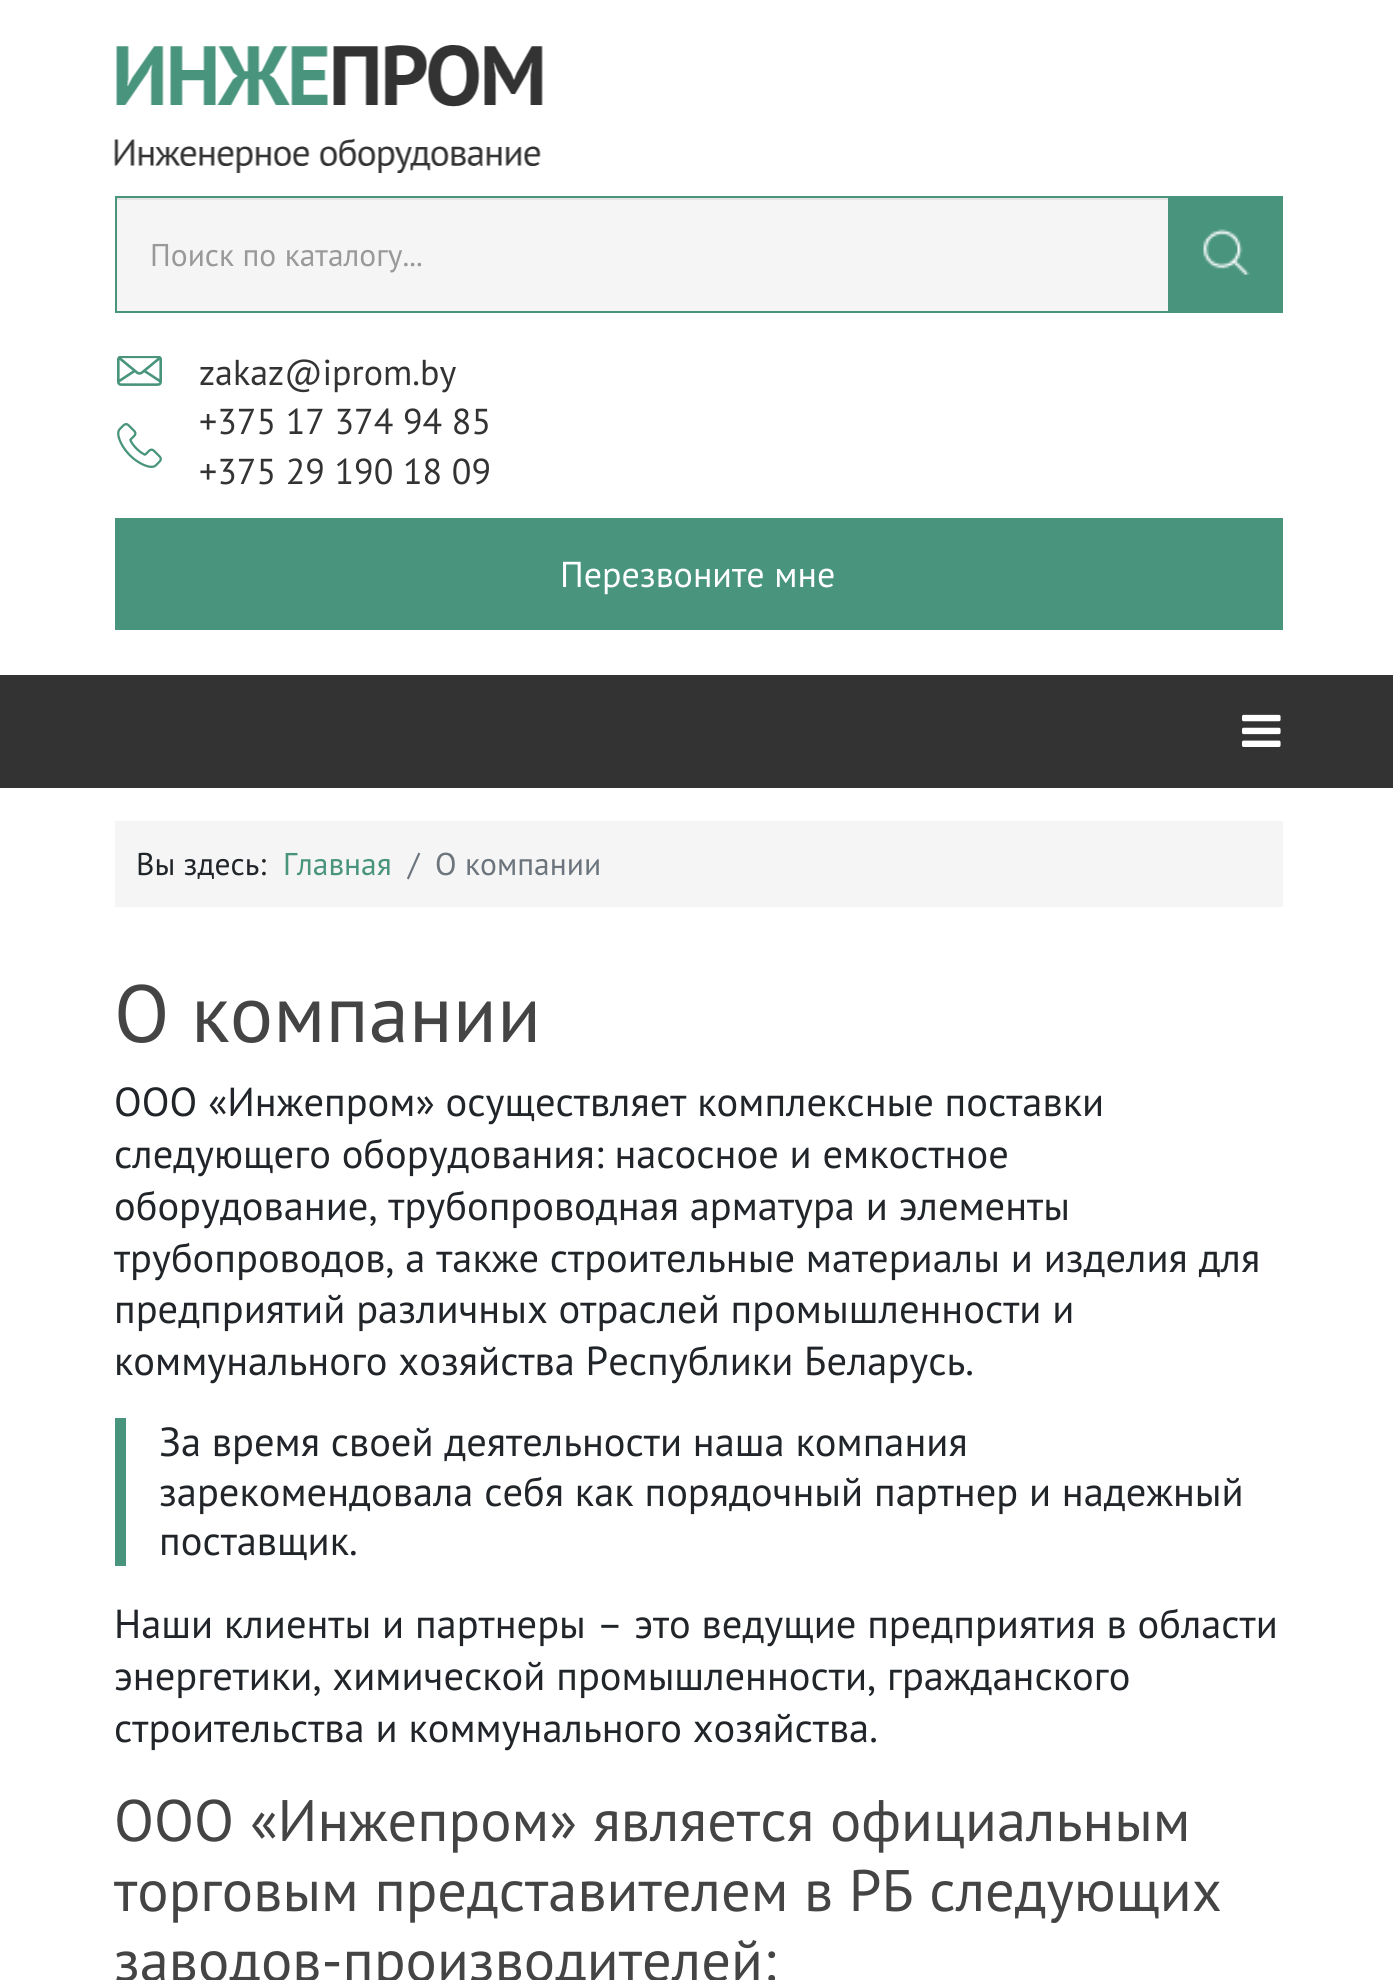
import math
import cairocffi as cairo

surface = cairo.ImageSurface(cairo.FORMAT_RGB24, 1393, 1980)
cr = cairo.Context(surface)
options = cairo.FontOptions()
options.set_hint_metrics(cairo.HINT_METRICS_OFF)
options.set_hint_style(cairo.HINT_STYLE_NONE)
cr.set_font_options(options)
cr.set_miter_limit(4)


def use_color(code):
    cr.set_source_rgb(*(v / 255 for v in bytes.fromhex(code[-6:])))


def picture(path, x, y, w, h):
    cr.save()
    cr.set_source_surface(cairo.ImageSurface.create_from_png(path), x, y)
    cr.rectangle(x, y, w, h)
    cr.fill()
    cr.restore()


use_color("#ffffff")
cr.paint()
picture("img1.png", 114, 45, 429, 128)
use_color("#f5f5f5")
cr.rectangle(117, 200, 1051, 111)
cr.fill()
use_color("#e3e3e3")
cr.rectangle(117, 198, 1051, 2)
cr.fill()
cr.rectangle(116, 197, 1166, 115)
use_color("#49947d")
cr.stroke()
cr.select_font_face("PT Sans")
cr.set_font_size(31.5)
use_color("#999999")
cr.move_to(150, 266)
cr.show_text("Поиск по каталогу...")
use_color("#49947d")
cr.rectangle(1168, 198, 113, 113)
cr.fill()
picture("img2.png", 1203, 229, 47, 47)
picture("img3.png", 117, 356, 45, 30)
cr.set_font_size(36)
use_color("#333333")
cr.move_to(199, 385)
cr.show_text("zakaz@iprom.by")
picture("img4.png", 117, 423, 45, 45)
cr.move_to(199, 434)
cr.show_text("+375 17 374 94 85")
cr.move_to(199, 484)
cr.show_text("+375 29 190 18 09")
use_color("#49947d")
cr.rectangle(115, 518, 1168, 112)
cr.fill()
use_color("#ffffff")
cr.move_to(560, 587)
cr.show_text("Перезвоните мне")
use_color("#333333")
cr.rectangle(0, 675, 1393, 113)
cr.fill()
picture("img5.png", 1242, 714, 39, 33)
use_color("#f5f5f5")
cr.rectangle(115, 821, 1168, 86)
cr.fill()
cr.set_font_size(31.5)
use_color("#212529")
cr.move_to(136, 875)
cr.show_text("Вы здесь:")
use_color("#49947d")
cr.move_to(283, 875)
cr.show_text("Главная")
use_color("#6c757d")
cr.move_to(408, 875)
cr.show_text("/")
cr.move_to(435, 875)
cr.show_text("О компании")
cr.set_font_size(81)
use_color("#444444")
cr.move_to(114, 1042)
cr.show_text("О компании")
cr.set_font_size(40.5)
use_color("#212529")
cr.move_to(114, 1116)
cr.show_text("ООО «Инжепром» осуществляет комплексные поставки")
cr.move_to(114, 1168)
cr.show_text("следующего оборудования: насосное и емкостное")
cr.move_to(114, 1220)
cr.show_text("оборудование, трубопроводная арматура и элементы")
cr.move_to(114, 1272)
cr.show_text("трубопроводов, а также строительные материалы и изделия для")
cr.move_to(114, 1323)
cr.show_text("предприятий различных отраслей промышленности и")
cr.move_to(114, 1375)
cr.show_text("коммунального хозяйства Республики Беларусь.")
use_color("#49947d")
cr.rectangle(115, 1418, 11, 148)
cr.fill()
use_color("#212529")
cr.move_to(159, 1456)
cr.show_text("За время своей деятельности наша компания")
cr.move_to(159, 1506)
cr.show_text("зарекомендовала себя как порядочный партнер и надежный")
cr.move_to(159, 1555)
cr.show_text("поставщик.")
cr.move_to(114, 1638)
cr.show_text("Наши клиенты и партнеры – это ведущие предприятия в области")
cr.move_to(114, 1690)
cr.show_text("энергетики, химической промышленности, гражданского")
cr.move_to(114, 1742)
cr.show_text("строительства и коммунального хозяйства.")
cr.set_font_size(58.5)
use_color("#444444")
cr.move_to(114, 1841)
cr.show_text("ООО «Инжепром» является официальным")
cr.move_to(114, 1911)
cr.show_text("торговым представителем в РБ следующих")
cr.move_to(114, 1981)
cr.show_text("заводов-производителей:")
surface.write_to_png("result.png")
